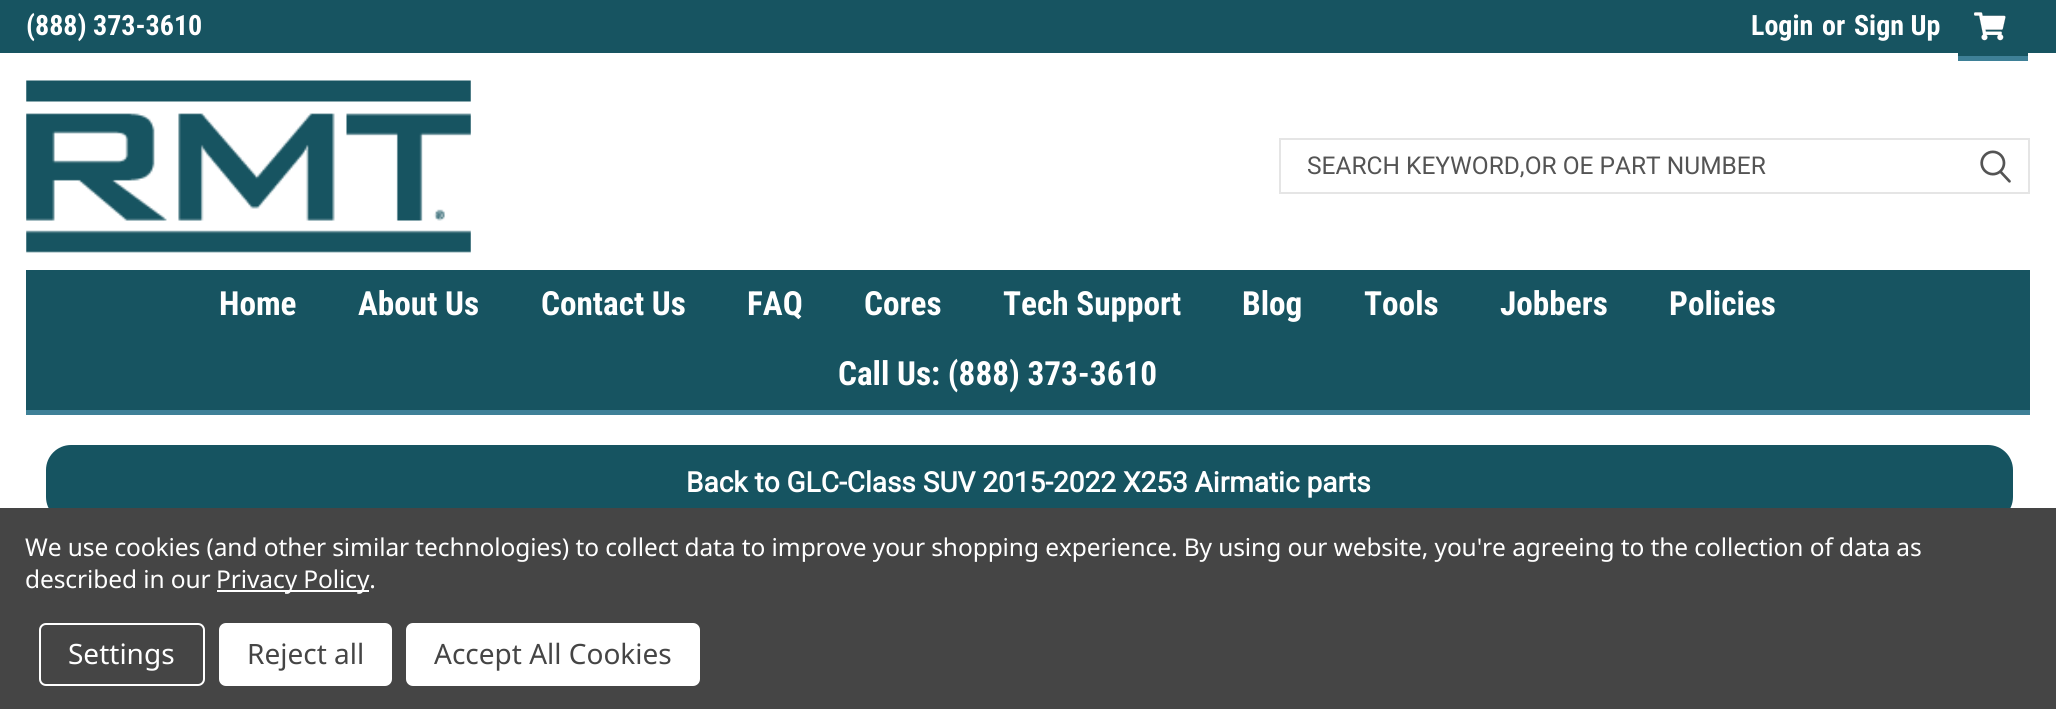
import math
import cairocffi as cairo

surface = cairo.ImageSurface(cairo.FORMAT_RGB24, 2056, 709)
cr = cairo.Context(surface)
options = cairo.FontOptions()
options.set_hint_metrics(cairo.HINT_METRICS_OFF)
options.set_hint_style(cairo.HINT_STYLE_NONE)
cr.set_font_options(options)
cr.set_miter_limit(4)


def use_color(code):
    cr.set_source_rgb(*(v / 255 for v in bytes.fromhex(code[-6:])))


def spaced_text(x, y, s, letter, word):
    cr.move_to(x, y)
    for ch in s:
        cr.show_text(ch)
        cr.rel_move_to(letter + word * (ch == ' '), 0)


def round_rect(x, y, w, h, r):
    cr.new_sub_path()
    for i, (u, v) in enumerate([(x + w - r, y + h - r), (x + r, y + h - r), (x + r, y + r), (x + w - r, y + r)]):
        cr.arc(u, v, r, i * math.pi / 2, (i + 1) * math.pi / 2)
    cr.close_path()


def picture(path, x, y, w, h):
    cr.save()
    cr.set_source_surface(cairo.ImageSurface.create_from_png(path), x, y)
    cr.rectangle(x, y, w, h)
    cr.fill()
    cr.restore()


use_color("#ffffff")
cr.paint()
use_color("#175461")
cr.rectangle(0, 0, 2056, 53)
cr.fill()
cr.select_font_face("Roboto Condensed", cairo.FONT_SLANT_NORMAL, cairo.FONT_WEIGHT_BOLD)
cr.set_font_size(28)
use_color("#ffffff")
cr.move_to(26, 35)
cr.show_text("(888) 373-3610")
cr.move_to(1751, 35)
cr.show_text("Login")
cr.move_to(1822, 35)
cr.show_text("or")
cr.move_to(1854, 35)
cr.show_text("Sign Up")
use_color("#175461")
cr.rectangle(1958, 53, 70, 3)
cr.fill()
use_color("#3e8097")
cr.rectangle(1958, 56, 70, 5)
cr.fill()
picture("img1.png", 1974, 12, 32, 29)
picture("img2.png", 26, 80, 445, 173)
cr.rectangle(1280, 139, 749, 54)
use_color("#e5e5e5")
cr.stroke()
cr.select_font_face("Roboto")
cr.set_font_size(24.5)
use_color("#545454")
cr.move_to(1307, 174)
cr.show_text("SEARCH KEYWORD,OR OE PART NUMBER")
picture("img3.png", 1980, 150, 31, 33)
use_color("#175461")
cr.rectangle(26, 270, 2004, 140)
cr.fill()
use_color("#3e8097")
cr.rectangle(26, 410, 2004, 5)
cr.fill()
cr.select_font_face("Roboto Condensed", cairo.FONT_SLANT_NORMAL, cairo.FONT_WEIGHT_BOLD)
cr.set_font_size(33.25)
use_color("#ffffff")
cr.move_to(219, 315)
cr.show_text("Home")
cr.move_to(358, 315)
cr.show_text("About Us")
cr.move_to(541, 315)
cr.show_text("Contact Us")
cr.move_to(747, 315)
cr.show_text("FAQ")
cr.move_to(864, 315)
cr.show_text("Cores")
cr.move_to(1003, 315)
cr.show_text("Tech Support")
cr.move_to(1242, 315)
cr.show_text("Blog")
cr.move_to(1364, 315)
cr.show_text("Tools")
cr.move_to(1500, 315)
cr.show_text("Jobbers")
cr.move_to(1669, 315)
cr.show_text("Policies")
cr.move_to(838, 385)
cr.show_text("Call Us: (888) 373-3610")
use_color("#165461")
round_rect(46, 445, 1967, 77, 25)
cr.fill()
cr.select_font_face("Roboto", cairo.FONT_SLANT_NORMAL, cairo.FONT_WEIGHT_BOLD)
cr.set_font_size(28)
use_color("#ffffff")
cr.move_to(686, 492)
cr.show_text("Back to GLC-Class SUV 2015-2022 X253 Airmatic parts")
use_color("#454545")
cr.rectangle(0, 508, 2056, 201)
cr.fill()
cr.select_font_face("Noto Sans")
cr.set_font_size(24.5)
use_color("#ffffff")
spaced_text(25, 556, "We use cookies (and other similar technologies) to collect data to improve your shopping experience. By using our website, you're agreeing to the collection of data as", -0.09, 0)
spaced_text(25, 588, "described in our", -0.09, 0)
cr.rectangle(217, 590, 152, 2)
cr.fill()
spaced_text(216, 588, "Privacy Policy.", -0.09, 0)
round_rect(40, 624, 164, 61, 6)
cr.stroke()
cr.set_font_size(28)
cr.move_to(68, 664)
cr.show_text("Settings")
round_rect(219, 623, 173, 63, 7)
cr.fill()
use_color("#454545")
cr.move_to(247, 664)
cr.show_text("Reject all")
use_color("#ffffff")
round_rect(406, 623, 294, 63, 7)
cr.fill()
use_color("#454545")
cr.move_to(434, 664)
cr.show_text("Accept All Cookies")
surface.write_to_png("result.png")
